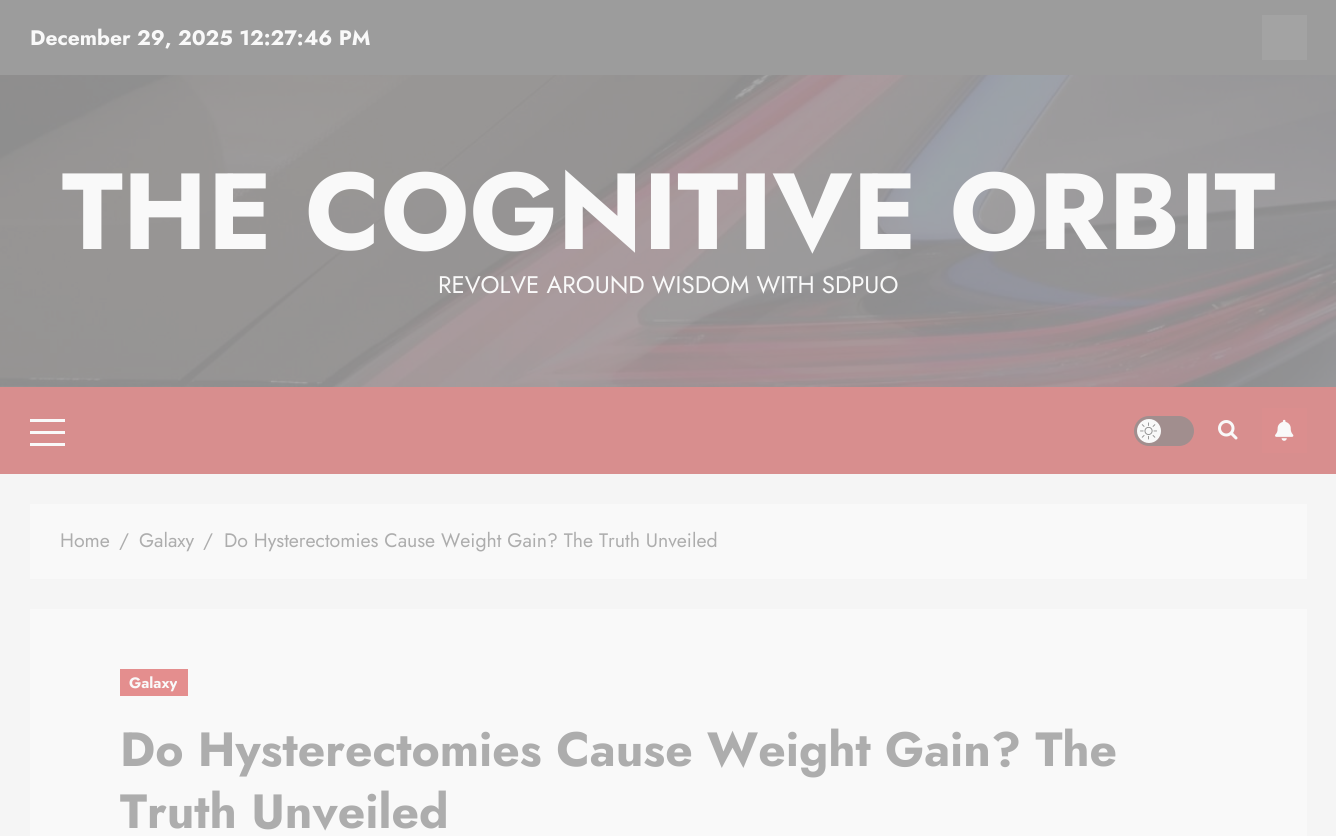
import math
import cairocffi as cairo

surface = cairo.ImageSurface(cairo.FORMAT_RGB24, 1336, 836)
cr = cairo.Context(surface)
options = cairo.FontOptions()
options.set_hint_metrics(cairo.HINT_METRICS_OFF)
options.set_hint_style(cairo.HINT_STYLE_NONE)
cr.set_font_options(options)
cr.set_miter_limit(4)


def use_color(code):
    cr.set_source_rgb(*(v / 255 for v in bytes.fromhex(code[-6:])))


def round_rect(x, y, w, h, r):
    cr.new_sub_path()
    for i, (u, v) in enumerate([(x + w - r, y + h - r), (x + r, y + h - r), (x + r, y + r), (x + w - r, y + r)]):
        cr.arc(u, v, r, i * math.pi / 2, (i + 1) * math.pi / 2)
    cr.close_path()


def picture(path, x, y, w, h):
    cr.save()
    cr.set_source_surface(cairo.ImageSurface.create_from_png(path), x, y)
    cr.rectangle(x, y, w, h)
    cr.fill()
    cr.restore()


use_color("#f5f5f5")
cr.paint()
use_color("#9c9c9c")
cr.rectangle(0, 0, 1336, 75)
cr.fill()
cr.select_font_face("Jost", cairo.FONT_SLANT_NORMAL, cairo.FONT_WEIGHT_BOLD)
cr.set_font_size(21)
use_color("#f9f9f9")
cr.move_to(30, 45)
cr.show_text("December 29, 2025 12:27:46 PM")
use_color("#a3a3a3")
cr.rectangle(1262, 15, 45, 45)
cr.fill()
picture("img1.png", 0, 75, 1336, 312)
cr.set_font_size(108)
use_color("#f9f9f9")
cr.move_to(62, 249)
cr.show_text("THE COGNITIVE ORBIT")
cr.select_font_face("Jost")
cr.set_font_size(24)
cr.move_to(438, 293)
cr.show_text("REVOLVE AROUND WISDOM WITH SDPUO")
use_color("#d88e8e")
cr.rectangle(0, 387, 1336, 87)
cr.fill()
use_color("#f9f9f9")
cr.rectangle(30, 431, 35, 3)
cr.fill()
cr.rectangle(30, 419, 35, 3)
cr.fill()
cr.rectangle(30, 443, 35, 3)
cr.fill()
use_color("#a18e8e")
round_rect(1134, 416, 60, 30, 15)
cr.fill()
use_color("#f9f9f9")
cr.arc(1149, 431, 12, 0, 2 * math.pi)
cr.fill()
picture("img2.png", 1140, 422, 17, 18)
picture("img3.png", 1218, 420, 20, 20)
use_color("#db8e8e")
cr.rectangle(1262, 408, 45, 45)
cr.fill()
picture("img4.png", 1275, 419, 19, 22)
use_color("#f9f9f9")
cr.rectangle(30, 504, 1277, 75)
cr.fill()
cr.set_font_size(19.5)
use_color("#adadad")
cr.move_to(60, 547)
cr.show_text("Home")
cr.move_to(119, 547)
cr.show_text("/")
cr.move_to(139, 547)
cr.show_text("Galaxy")
cr.move_to(203, 547)
cr.show_text("/")
cr.move_to(224, 547)
cr.show_text("Do Hysterectomies Cause Weight Gain? The Truth Unveiled")
use_color("#f9f9f9")
cr.rectangle(30, 609, 1277, 227)
cr.fill()
use_color("#e48e8e")
cr.rectangle(120, 669, 68, 27)
cr.fill()
cr.select_font_face("Jost", cairo.FONT_SLANT_NORMAL, cairo.FONT_WEIGHT_BOLD)
cr.set_font_size(15)
use_color("#f9f9f9")
cr.move_to(129, 688)
cr.show_text("Galaxy")
cr.set_font_size(48)
use_color("#adadad")
cr.move_to(120, 766)
cr.show_text("Do Hysterectomies Cause Weight Gain? The")
cr.move_to(120, 828)
cr.show_text("Truth Unveiled")
surface.write_to_png("result.png")
